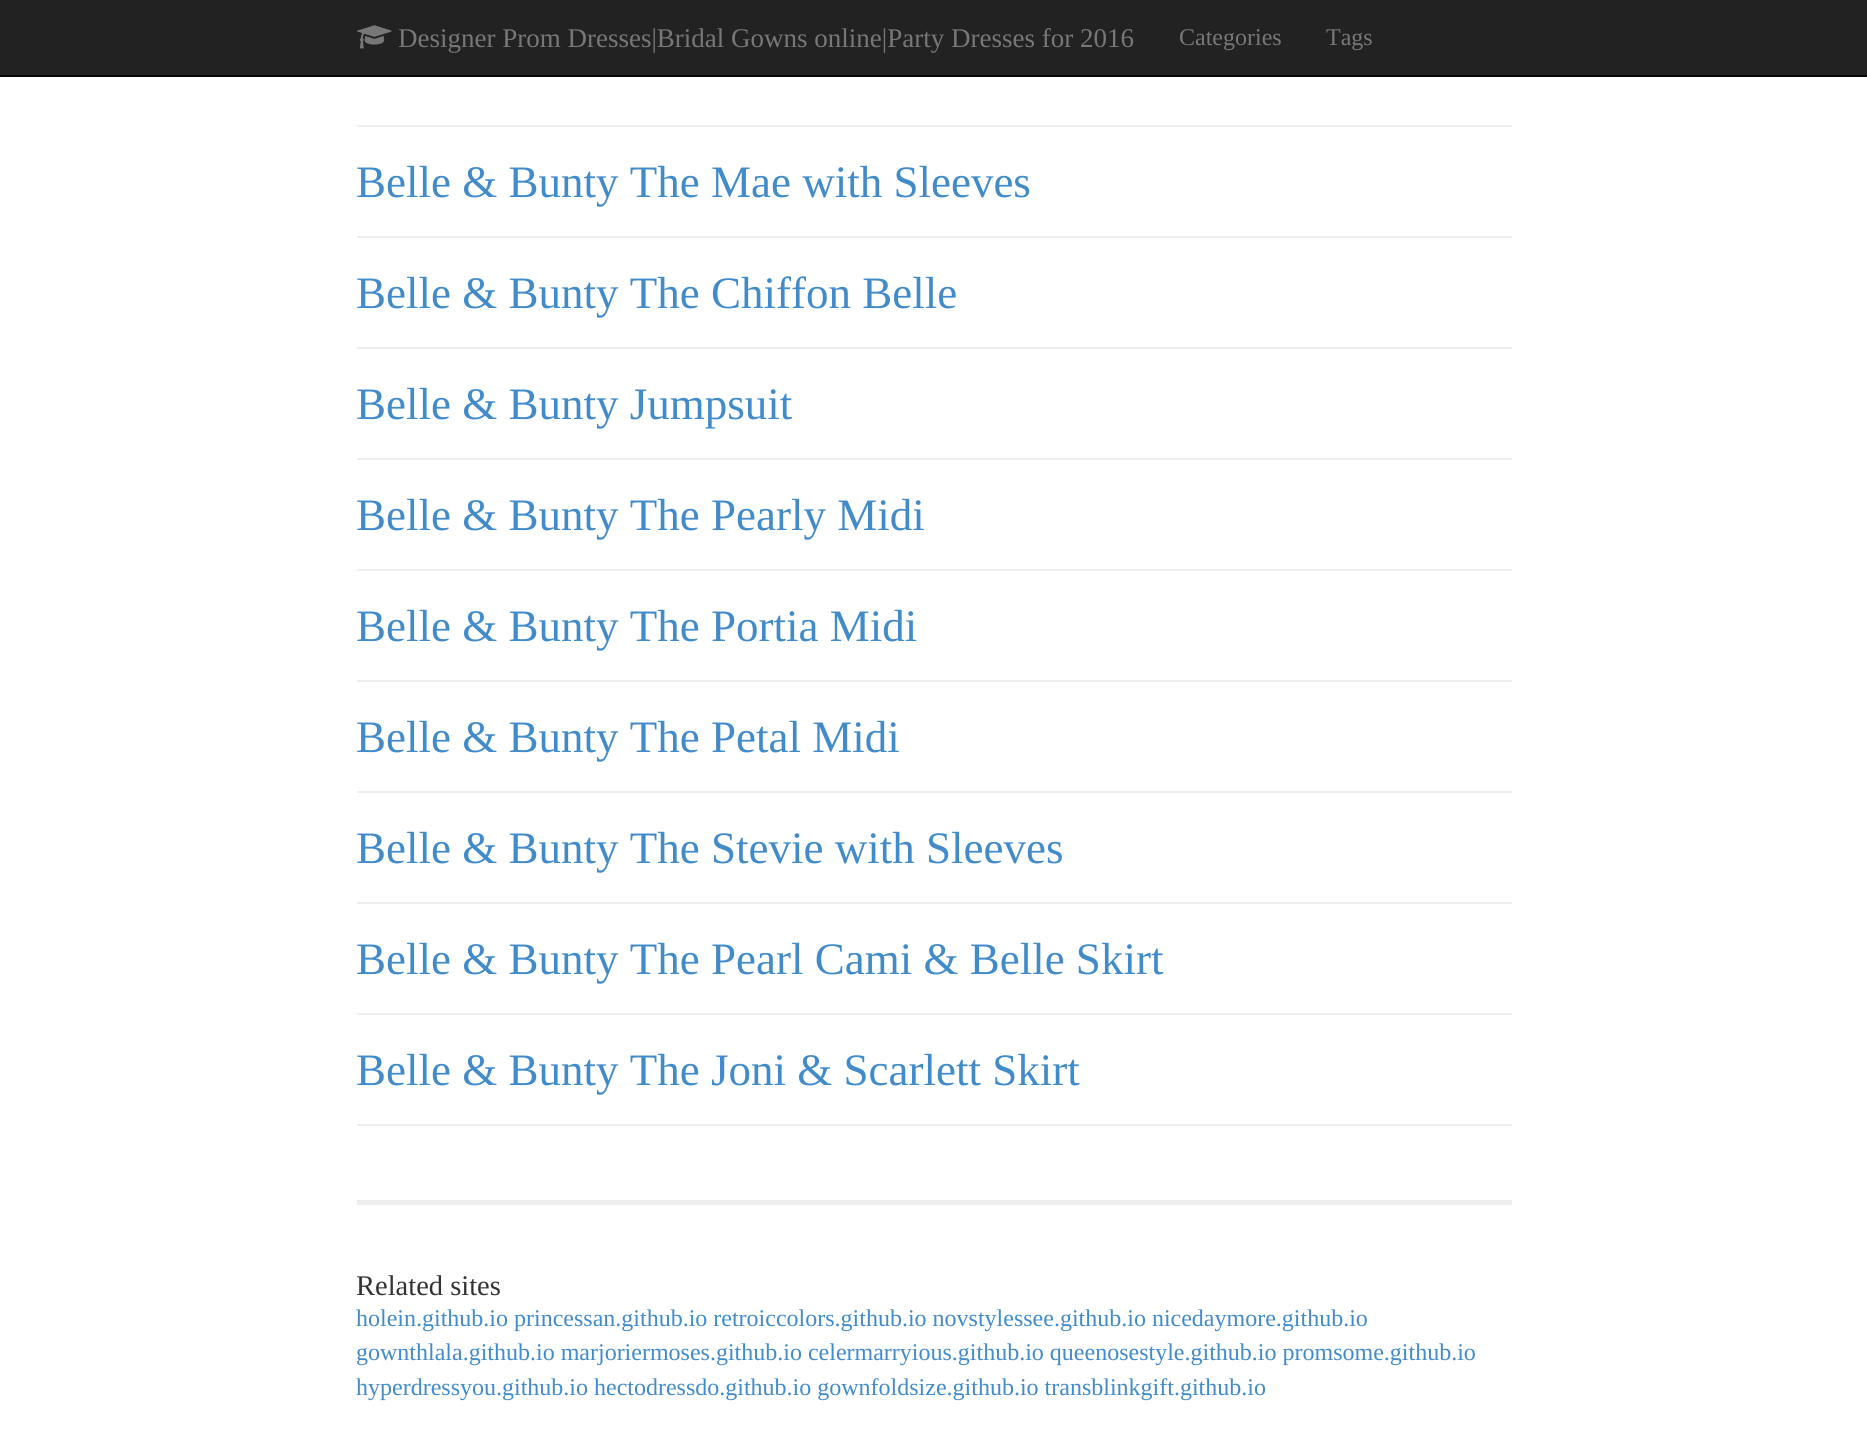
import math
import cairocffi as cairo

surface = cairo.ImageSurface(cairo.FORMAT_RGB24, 1867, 1450)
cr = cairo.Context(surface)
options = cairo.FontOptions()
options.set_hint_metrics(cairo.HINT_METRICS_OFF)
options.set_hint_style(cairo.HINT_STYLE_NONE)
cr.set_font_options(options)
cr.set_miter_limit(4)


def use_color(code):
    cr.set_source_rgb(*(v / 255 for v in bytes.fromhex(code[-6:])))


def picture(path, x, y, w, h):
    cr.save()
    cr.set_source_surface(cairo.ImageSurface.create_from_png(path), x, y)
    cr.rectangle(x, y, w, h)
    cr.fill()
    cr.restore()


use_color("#ffffff")
cr.paint()
use_color("#222222")
cr.rectangle(0, 0, 1867, 75)
cr.fill()
use_color("#080808")
cr.rectangle(0, 75, 1867, 2)
cr.fill()
picture("img1.png", 357, 25, 35, 24)
cr.select_font_face("Liberation Serif")
cr.set_font_size(27)
use_color("#777777")
cr.move_to(398, 47)
cr.show_text("Designer Prom Dresses|Bridal Gowns online|Party Dresses for 2016")
cr.set_font_size(24)
cr.move_to(1179, 45)
cr.show_text("Categories")
cr.move_to(1326, 45)
cr.show_text("Tags")
use_color("#eeeeee")
cr.rectangle(357, 125, 1155, 2)
cr.fill()
cr.set_font_size(45)
use_color("#428bca")
cr.move_to(356, 197)
cr.show_text("Belle & Bunty The Mae with Sleeves")
use_color("#eeeeee")
cr.rectangle(357, 236, 1155, 2)
cr.fill()
use_color("#428bca")
cr.move_to(356, 308)
cr.show_text("Belle & Bunty The Chiffon Belle")
use_color("#eeeeee")
cr.rectangle(357, 347, 1155, 2)
cr.fill()
use_color("#428bca")
cr.move_to(356, 419)
cr.show_text("Belle & Bunty Jumpsuit")
use_color("#eeeeee")
cr.rectangle(357, 458, 1155, 2)
cr.fill()
use_color("#428bca")
cr.move_to(356, 530)
cr.show_text("Belle & Bunty The Pearly Midi")
use_color("#eeeeee")
cr.rectangle(357, 569, 1155, 2)
cr.fill()
use_color("#428bca")
cr.move_to(356, 641)
cr.show_text("Belle & Bunty The Portia Midi")
use_color("#eeeeee")
cr.rectangle(357, 680, 1155, 2)
cr.fill()
use_color("#428bca")
cr.move_to(356, 752)
cr.show_text("Belle & Bunty The Petal Midi")
use_color("#eeeeee")
cr.rectangle(357, 791, 1155, 2)
cr.fill()
use_color("#428bca")
cr.move_to(356, 863)
cr.show_text("Belle & Bunty The Stevie with Sleeves")
use_color("#eeeeee")
cr.rectangle(357, 902, 1155, 2)
cr.fill()
use_color("#428bca")
cr.move_to(356, 974)
cr.show_text("Belle & Bunty The Pearl Cami & Belle Skirt")
use_color("#eeeeee")
cr.rectangle(357, 1013, 1155, 2)
cr.fill()
use_color("#428bca")
cr.move_to(356, 1085)
cr.show_text("Belle & Bunty The Joni & Scarlett Skirt")
use_color("#eeeeee")
cr.rectangle(357, 1124, 1155, 2)
cr.fill()
cr.rectangle(357, 1200, 1155, 5)
cr.fill()
cr.set_font_size(28.5)
use_color("#333333")
cr.move_to(356, 1295)
cr.show_text("Related sites")
cr.set_font_size(24)
use_color("#428bca")
cr.move_to(356, 1326)
cr.show_text("holein.github.io princessan.github.io retroiccolors.github.io novstylessee.github.io nicedaymore.github.io")
cr.move_to(356, 1360)
cr.show_text("gownthlala.github.io marjoriermoses.github.io celermarryious.github.io queenosestyle.github.io promsome.github.io")
cr.move_to(356, 1395)
cr.show_text("hyperdressyou.github.io hectodressdo.github.io gownfoldsize.github.io transblinkgift.github.io")
surface.write_to_png("result.png")
